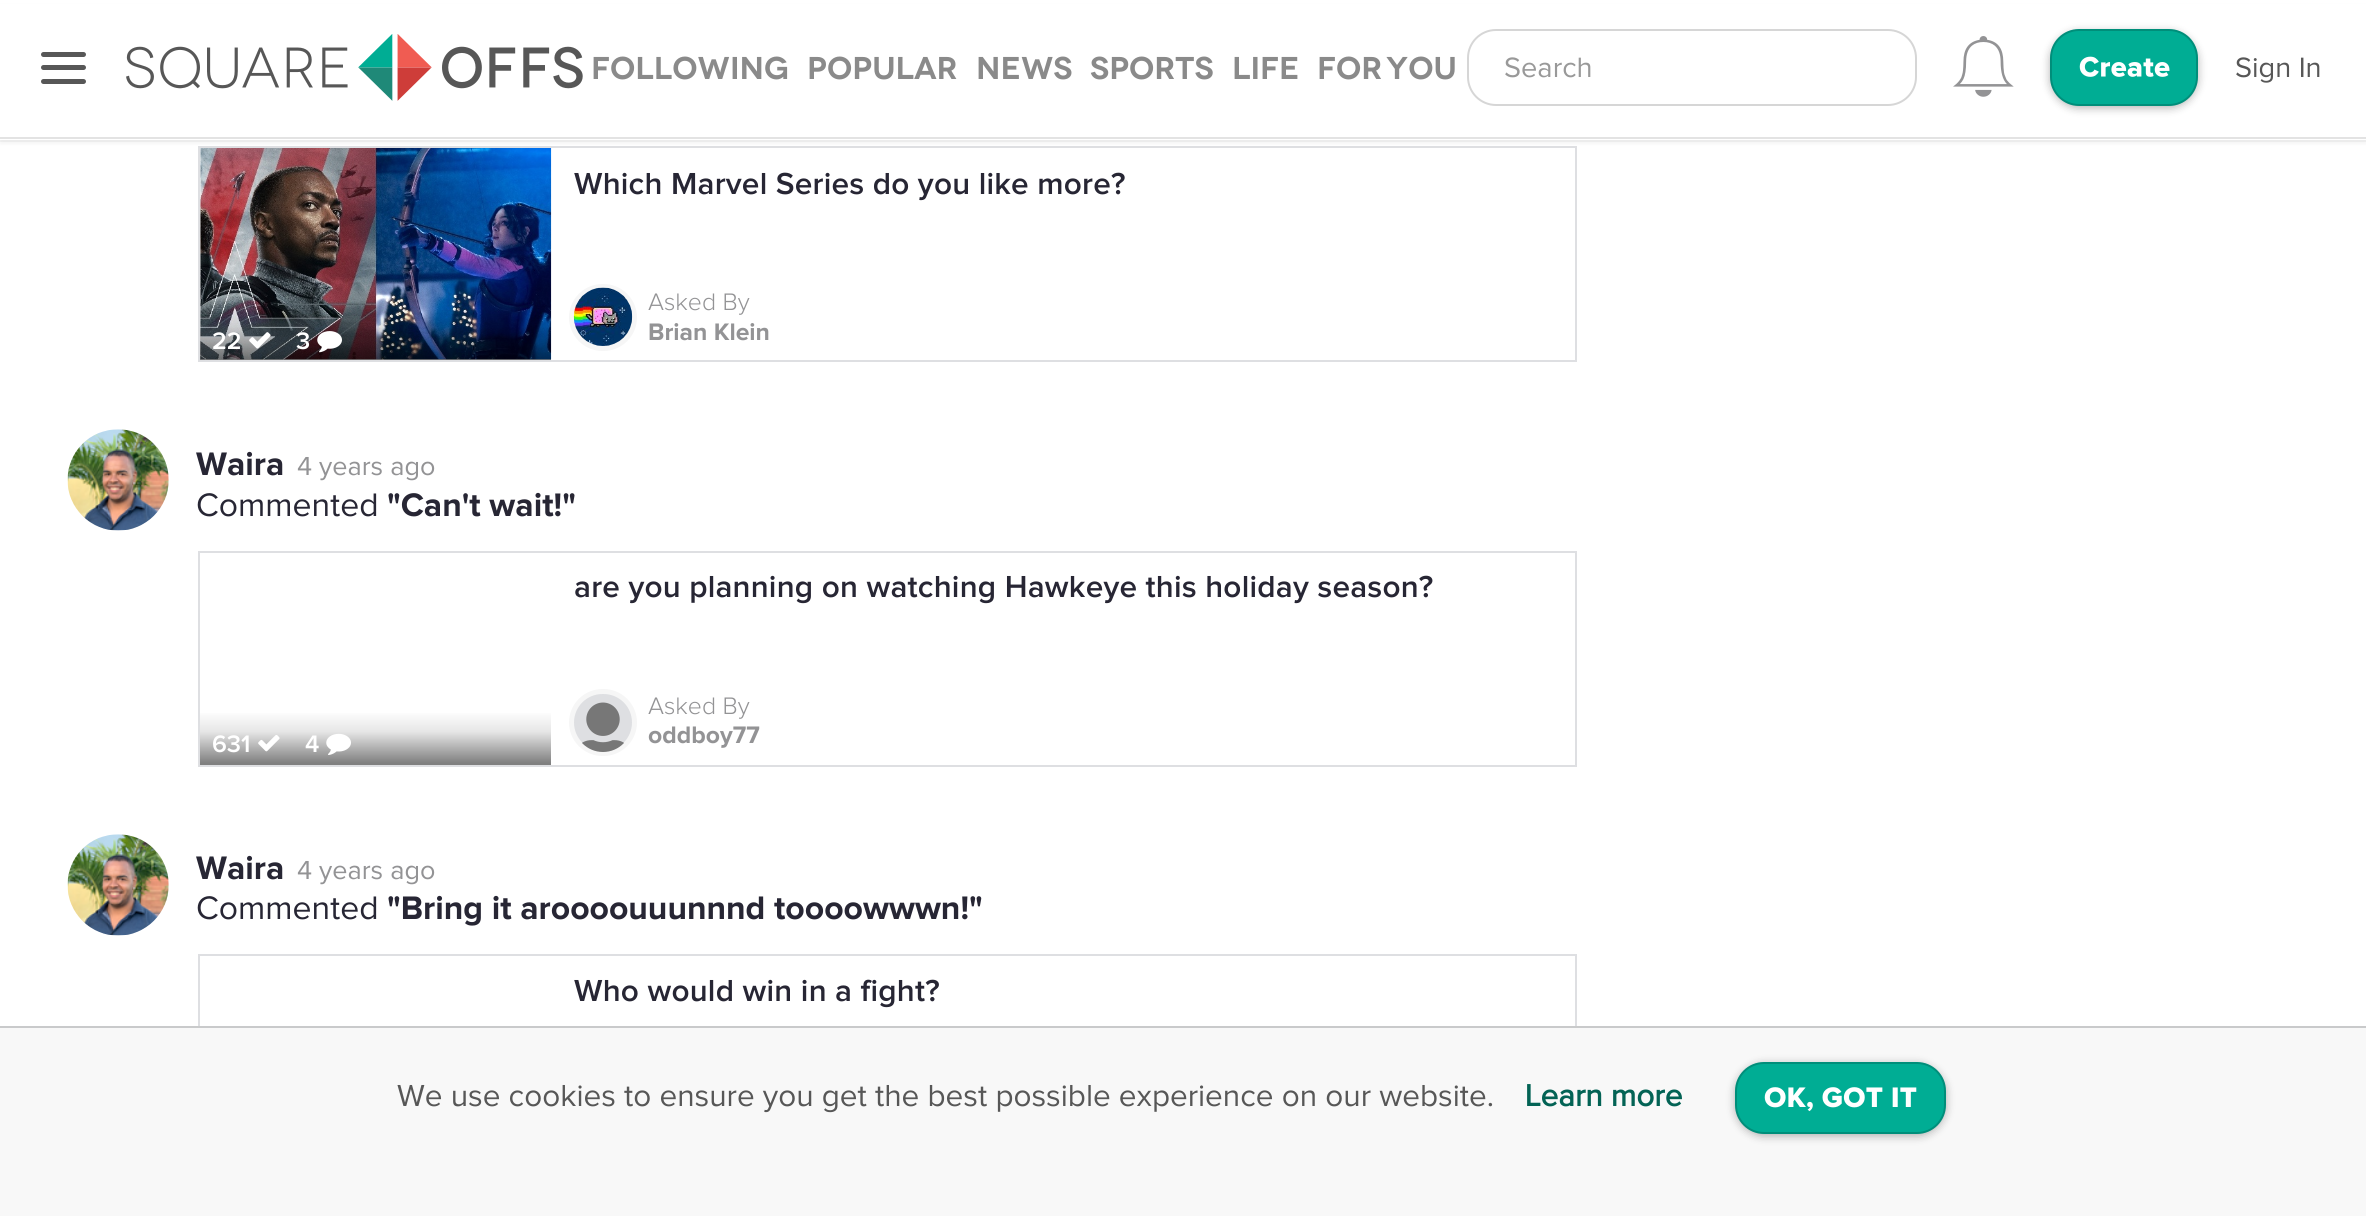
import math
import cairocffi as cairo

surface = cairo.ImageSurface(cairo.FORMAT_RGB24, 2366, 1216)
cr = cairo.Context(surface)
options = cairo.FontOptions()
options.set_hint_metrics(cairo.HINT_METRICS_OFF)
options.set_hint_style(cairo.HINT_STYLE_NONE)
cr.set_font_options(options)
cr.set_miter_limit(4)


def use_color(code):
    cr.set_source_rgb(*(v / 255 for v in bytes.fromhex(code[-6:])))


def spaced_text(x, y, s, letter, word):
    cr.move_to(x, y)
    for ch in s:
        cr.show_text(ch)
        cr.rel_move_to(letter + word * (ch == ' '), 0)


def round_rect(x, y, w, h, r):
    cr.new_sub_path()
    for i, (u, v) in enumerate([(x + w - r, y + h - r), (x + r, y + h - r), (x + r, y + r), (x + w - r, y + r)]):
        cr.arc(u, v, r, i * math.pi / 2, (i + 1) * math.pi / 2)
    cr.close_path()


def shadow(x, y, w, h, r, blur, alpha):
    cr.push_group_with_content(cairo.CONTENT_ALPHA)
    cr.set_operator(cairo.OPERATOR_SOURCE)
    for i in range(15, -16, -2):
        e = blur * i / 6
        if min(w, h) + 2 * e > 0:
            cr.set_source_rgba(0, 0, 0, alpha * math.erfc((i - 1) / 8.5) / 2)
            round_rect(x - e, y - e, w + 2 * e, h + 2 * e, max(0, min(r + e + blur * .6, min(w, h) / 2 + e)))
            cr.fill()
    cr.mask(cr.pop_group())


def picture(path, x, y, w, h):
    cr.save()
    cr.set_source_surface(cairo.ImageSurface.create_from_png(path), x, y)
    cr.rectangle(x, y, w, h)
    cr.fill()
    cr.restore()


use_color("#ffffff")
cr.paint()
use_color("#f5f5f5")
cr.rectangle(0, 140, 2366, 2)
cr.fill()
cr.rectangle(199, 147, 1377, 214)
use_color("#dedfe2")
cr.stroke()
picture("img4.png", 200, 148, 352, 212)
use_color("#000000")
shadow(0, 5, 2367, 139, 0, 2, 0.04)
use_color("#ffffff")
cr.rectangle(0, 4, 2366, 136)
cr.fill()
use_color("#575757")
round_rect(41, 65, 45, 5, 2.5)
cr.fill()
round_rect(41, 52, 45, 5, 2.5)
cr.fill()
round_rect(41, 79, 45, 5, 2.5)
cr.fill()
use_color("#e3e3e3")
cr.rectangle(0, 137, 2366, 2)
cr.fill()
picture("img1.png", 126, 34, 457, 67)
cr.select_font_face("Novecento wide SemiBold")
cr.set_font_size(31.5)
use_color("#8a8a8a")
cr.move_to(591, 79)
cr.show_text("Following")
cr.move_to(807, 79)
cr.show_text("Popular")
cr.move_to(976, 79)
cr.show_text("News")
cr.move_to(1090, 79)
cr.show_text("Sports")
cr.move_to(1232, 79)
cr.show_text("Life")
spaced_text(1317, 79, "For you", 0, -4)
round_rect(1468, 30, 448, 75, 28)
use_color("#d6d6d6")
cr.stroke()
cr.select_font_face("Proxima Nova")
cr.set_font_size(29)
use_color("#999999")
cr.move_to(1504, 77)
cr.show_text("Search")
picture("img2.png", 1953, 36, 61, 61)
use_color("#000000")
shadow(2050, 32, 148, 76, 29, 4.5, 0.3)
use_color("#00ad94")
round_rect(2051, 30, 146, 75, 28)
cr.fill_preserve()
use_color("#008e7a")
cr.stroke()
picture("img3.png", 2079, 56, 91, 21)
use_color("#575757")
cr.move_to(2235, 77)
cr.show_text("Sign In")
cr.select_font_face("Proxima Nova SemiBold")
cr.set_font_size(31.5)
use_color("#272634")
spaced_text(574, 194, "Which Marvel Series do you like more?", 0.23, 0)
gradient = cairo.LinearGradient(376, 149, 376, 358)
gradient.add_color_stop_rgba(0, 0, 0, 0, 0)
gradient.add_color_stop_rgba(0.75, 0, 0, 0, 0)
gradient.add_color_stop_rgba(0.85, 0, 0, 0, 0.1)
gradient.add_color_stop_rgba(1, 0, 0, 0, 0.5)
cr.set_source(gradient)
cr.rectangle(200, 310, 351, 48)
cr.fill()
cr.save()
cr.rectangle(200, 149, 351, 211)
cr.clip()
cr.set_source_rgba(0, 0, 0, 0.5)
cr.new_path()
cr.move_to(554, 360)
cr.line_to(198, 360)
cr.line_to(200, 358)
cr.line_to(551, 358)
cr.close_path()
cr.fill()
cr.restore()
cr.set_font_size(24.75)
use_color("#ffffff")
cr.move_to(212, 349)
cr.show_text("22")
picture("img5.png", 249, 332, 22, 17)
cr.move_to(296, 349)
cr.show_text("3")
picture("img6.png", 317, 331, 25, 22)
use_color("#dedfe2")
round_rect(571.5, 286.5, 63, 62, 31)
cr.fill_preserve()
use_color("#f6f6f6")
cr.set_line_width(5)
cr.stroke()
picture("img7.png", 573, 287, 60, 59)
cr.select_font_face("Proxima Nova Light")
use_color("#939395")
cr.move_to(648, 310)
cr.show_text("Asked By")
cr.select_font_face("Proxima Nova", cairo.FONT_SLANT_NORMAL, cairo.FONT_WEIGHT_BOLD)
cr.move_to(648, 340)
cr.show_text("Brian Klein")
picture("img8.png", 67, 429, 102, 102)
cr.set_font_size(33.75)
use_color("#272634")
cr.move_to(196, 475)
cr.show_text("Waira")
cr.select_font_face("Proxima Nova")
cr.set_font_size(27)
use_color("#939395")
cr.move_to(297, 475)
cr.show_text("4 years ago")
cr.set_font_size(33.75)
use_color("#272634")
cr.move_to(196, 516)
cr.show_text("Commented")
cr.select_font_face("Proxima Nova", cairo.FONT_SLANT_NORMAL, cairo.FONT_WEIGHT_BOLD)
cr.move_to(387, 516)
cr.show_text("\"Can't wait!\"")
cr.rectangle(199, 552, 1377, 214)
use_color("#dedfe2")
cr.set_line_width(2)
cr.stroke()
cr.select_font_face("Proxima Nova SemiBold")
cr.set_font_size(31.5)
use_color("#272634")
spaced_text(574, 597, "are you planning on watching Hawkeye this holiday season?", 0.23, 0)
gradient = cairo.LinearGradient(376, 554, 376, 763)
gradient.add_color_stop_rgba(0, 1, 1, 1, 1)
gradient.add_color_stop_rgba(0.75, 1, 1, 1, 1)
gradient.add_color_stop_rgba(0.85, 0.902, 0.902, 0.902, 1)
gradient.add_color_stop_rgba(1, 0.502, 0.502, 0.502, 1)
cr.set_source(gradient)
cr.rectangle(200, 713, 351, 50)
cr.fill()
cr.save()
cr.rectangle(200, 554, 351, 211)
cr.clip()
use_color("#808080")
cr.new_path()
cr.move_to(554, 765)
cr.line_to(198, 765)
cr.line_to(200, 763)
cr.line_to(551, 763)
cr.close_path()
cr.fill()
cr.restore()
cr.set_font_size(24.75)
use_color("#ffffff")
cr.move_to(212, 752)
cr.show_text("631")
picture("img9.png", 258, 735, 22, 17)
cr.move_to(305, 752)
cr.show_text("4")
picture("img10.png", 326, 733, 25, 22)
use_color("#dedfe2")
round_rect(571.5, 691.5, 63, 62, 31)
cr.fill_preserve()
use_color("#f6f6f6")
cr.set_line_width(5)
cr.stroke()
cr.select_font_face("Proxima Nova Light")
use_color("#939395")
cr.move_to(648, 714)
cr.show_text("Asked By")
cr.select_font_face("Proxima Nova", cairo.FONT_SLANT_NORMAL, cairo.FONT_WEIGHT_BOLD)
cr.move_to(648, 743)
cr.show_text("oddboy77")
picture("img11.png", 582, 702, 42, 50)
picture("img12.png", 67, 834, 102, 102)
cr.set_font_size(33.75)
use_color("#272634")
cr.move_to(196, 879)
cr.show_text("Waira")
cr.select_font_face("Proxima Nova")
cr.set_font_size(27)
use_color("#939395")
cr.move_to(297, 879)
cr.show_text("4 years ago")
cr.set_font_size(33.75)
use_color("#272634")
cr.move_to(196, 919)
cr.show_text("Commented")
cr.select_font_face("Proxima Nova", cairo.FONT_SLANT_NORMAL, cairo.FONT_WEIGHT_BOLD)
cr.move_to(387, 919)
cr.show_text("\"Bring it aroooouuunnnd toooowwwn!\"")
cr.rectangle(199, 955, 1377, 214)
use_color("#dedfe2")
cr.set_line_width(2)
cr.stroke()
cr.select_font_face("Proxima Nova SemiBold")
cr.set_font_size(31.5)
use_color("#272634")
spaced_text(574, 1001, "Who would win in a fight?", 0.23, 0)
use_color("#f8f8f8")
cr.rectangle(0, 1028, 2366, 188)
cr.fill()
use_color("#c9cacb")
cr.rectangle(0, 1026, 2366, 2)
cr.fill()
cr.select_font_face("Proxima Nova")
use_color("#575757")
cr.move_to(397, 1106)
cr.show_text("We use cookies to ensure you get the best possible experience on our website.")
cr.select_font_face("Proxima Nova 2", cairo.FONT_SLANT_NORMAL, cairo.FONT_WEIGHT_BOLD)
use_color("#036355")
cr.move_to(1525, 1106)
cr.show_text("Learn more")
use_color("#000000")
shadow(1735, 1064, 211, 72, 29, 4.5, 0.3)
use_color("#00ad94")
round_rect(1736, 1063, 209, 70, 28)
cr.fill_preserve()
use_color("#008e7a")
cr.stroke()
picture("img13.png", 1764, 1087, 153, 25)
surface.write_to_png("result.png")
